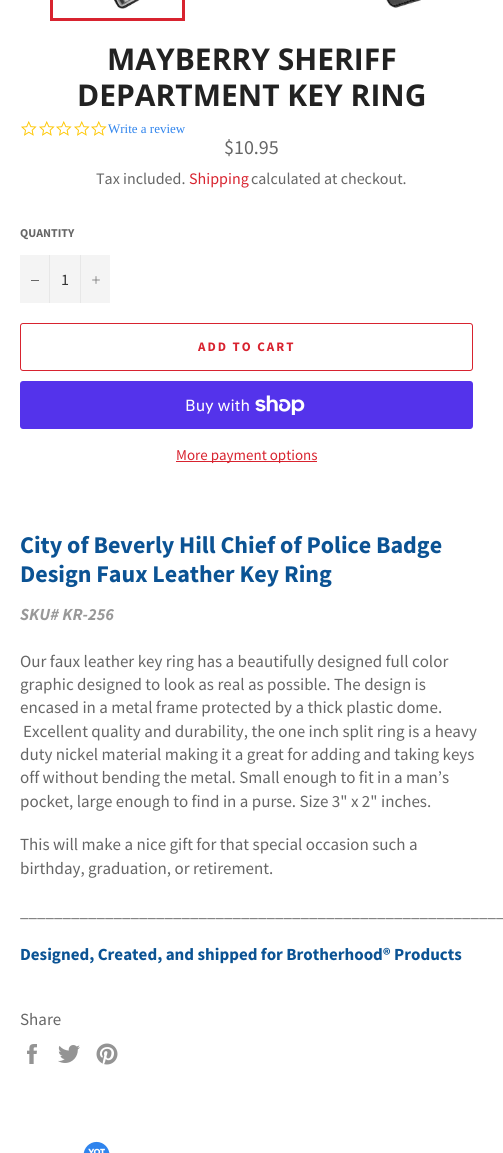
import math
import cairocffi as cairo

surface = cairo.ImageSurface(cairo.FORMAT_RGB24, 503, 1153)
cr = cairo.Context(surface)
options = cairo.FontOptions()
options.set_hint_metrics(cairo.HINT_METRICS_OFF)
options.set_hint_style(cairo.HINT_STYLE_NONE)
cr.set_font_options(options)
cr.set_miter_limit(4)


def use_color(code):
    cr.set_source_rgb(*(v / 255 for v in bytes.fromhex(code[-6:])))


def spaced_text(x, y, s, letter, word):
    cr.move_to(x, y)
    for ch in s:
        cr.show_text(ch)
        cr.rel_move_to(letter + word * (ch == ' '), 0)


def round_rect(x, y, w, h, r):
    cr.new_sub_path()
    for i, (u, v) in enumerate([(x + w - r, y + h - r), (x + r, y + h - r), (x + r, y + r), (x + w - r, y + r)]):
        cr.arc(u, v, r, i * math.pi / 2, (i + 1) * math.pi / 2)
    cr.close_path()


def picture(path, x, y, w, h):
    cr.save()
    cr.set_source_surface(cairo.ImageSurface.create_from_png(path), x, y)
    cr.rectangle(x, y, w, h)
    cr.fill()
    cr.restore()


use_color("#ffffff")
cr.paint()
picture("img1.png", 114, 0, 26, 9)
cr.rectangle(51.5, -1.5, 132, 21)
use_color("#d8232f")
cr.set_line_width(3)
cr.stroke()
picture("img2.png", 386, 0, 35, 8)
cr.select_font_face("Open Sans", cairo.FONT_SLANT_NORMAL, cairo.FONT_WEIGHT_BOLD)
cr.set_font_size(30)
use_color("#222222")
cr.move_to(107, 70)
cr.show_text("MAYBERRY SHERIFF")
cr.move_to(77, 106)
cr.show_text("DEPARTMENT KEY RING")
picture("img3.png", 21, 121, 16, 15)
picture("img3.png", 39, 121, 16, 15)
picture("img3.png", 56, 121, 16, 15)
picture("img3.png", 74, 121, 16, 15)
picture("img3.png", 91, 121, 16, 15)
cr.select_font_face("Liberation Serif")
cr.set_font_size(13)
use_color("#2f84ed")
cr.move_to(108, 133)
cr.show_text("Write a review")
cr.select_font_face("Source Sans Pro")
cr.set_font_size(20)
use_color("#666666")
cr.move_to(224, 154)
cr.show_text("$10.95")
cr.set_font_size(16)
cr.move_to(96, 184)
cr.show_text("Tax included.")
use_color("#d8232f")
cr.move_to(189, 184)
cr.show_text("Shipping")
use_color("#666666")
cr.move_to(251, 184)
cr.show_text("calculated at checkout.")
cr.select_font_face("Source Sans Pro", cairo.FONT_SLANT_NORMAL, cairo.FONT_WEIGHT_BOLD)
cr.set_font_size(12)
cr.move_to(20, 237)
cr.show_text("QUANTITY")
use_color("#f4f4f4")
cr.rectangle(20, 255, 90, 48)
cr.fill()
use_color("#e7e7e7")
cr.rectangle(49, 255, 1, 48)
cr.fill()
use_color("#666666")
cr.rectangle(31, 280, 8, 1)
cr.fill()
cr.select_font_face("Source Sans Pro")
cr.set_font_size(16)
use_color("#333333")
cr.move_to(61, 285)
cr.show_text("1")
use_color("#e7e7e7")
cr.rectangle(80, 255, 1, 48)
cr.fill()
picture("img4.png", 92, 276, 8, 8)
round_rect(20.5, 323.5, 452, 47, 2.5)
use_color("#d8232f")
cr.set_line_width(1)
cr.stroke()
cr.select_font_face("Source Sans Pro", cairo.FONT_SLANT_NORMAL, cairo.FONT_WEIGHT_BOLD)
cr.set_font_size(13)
spaced_text(198, 351, "ADD TO CART", 2, 0)
use_color("#5433eb")
round_rect(20, 381, 453, 48, 3)
cr.fill()
cr.select_font_face("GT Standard")
cr.set_font_size(16)
use_color("#ffffff")
cr.move_to(185, 411)
cr.show_text("Buy with")
picture("img5.png", 255, 395, 50, 20)
use_color("#d8232f")
cr.rectangle(176, 461, 141, 1)
cr.fill()
cr.select_font_face("Source Sans Pro")
cr.set_font_size(15)
cr.move_to(176, 460)
cr.show_text("More payment options")
cr.select_font_face("Source Sans Pro", cairo.FONT_SLANT_NORMAL, cairo.FONT_WEIGHT_BOLD)
cr.set_font_size(24)
use_color("#0b5394")
cr.move_to(20, 553)
cr.show_text("City of Beverly Hill Chief of Police Badge")
cr.move_to(20, 582)
cr.show_text("Design Faux Leather Key Ring")
cr.select_font_face("Source Sans Pro", cairo.FONT_SLANT_ITALIC, cairo.FONT_WEIGHT_BOLD)
cr.set_font_size(17)
use_color("#999999")
cr.move_to(20, 620)
cr.show_text("SKU# KR-256")
cr.select_font_face("Source Sans Pro")
use_color("#666666")
cr.move_to(20, 667)
cr.show_text("Our faux leather key ring has a beautifully designed full color")
cr.move_to(20, 690)
cr.show_text("graphic designed to look as real as possible. The design is")
cr.move_to(20, 713)
cr.show_text("encased in a metal frame protected by a thick plastic dome.")
cr.move_to(23, 737)
cr.show_text("Excellent quality and durability, the one inch split ring is a heavy")
cr.move_to(20, 760)
cr.show_text("duty nickel material making it a great for adding and taking keys")
cr.move_to(20, 783)
cr.show_text("off without bending the metal. Small enough to fit in a man’s")
cr.move_to(20, 807)
cr.show_text("pocket, large enough to find in a purse. Size 3\" x 2\" inches.")
cr.move_to(20, 850)
cr.show_text("This will make a nice gift for that special occasion such a")
cr.move_to(20, 874)
cr.show_text("birthday, graduation, or retirement.")
cr.move_to(20, 917)
cr.show_text("_________________________________________________________")
cr.select_font_face("Source Sans Pro", cairo.FONT_SLANT_NORMAL, cairo.FONT_WEIGHT_BOLD)
use_color("#0b5394")
cr.move_to(20, 960)
cr.show_text("Designed, Created, and shipped for Brotherhood® Products")
cr.select_font_face("Source Sans Pro")
use_color("#666666")
cr.move_to(20, 1025)
cr.show_text("Share")
picture("img6.png", 27, 1044, 10, 20)
picture("img7.png", 58, 1045, 22, 18)
picture("img8.png", 96, 1043, 22, 22)
picture("img9.png", 83, 1141, 27, 12)
surface.write_to_png("result.png")
